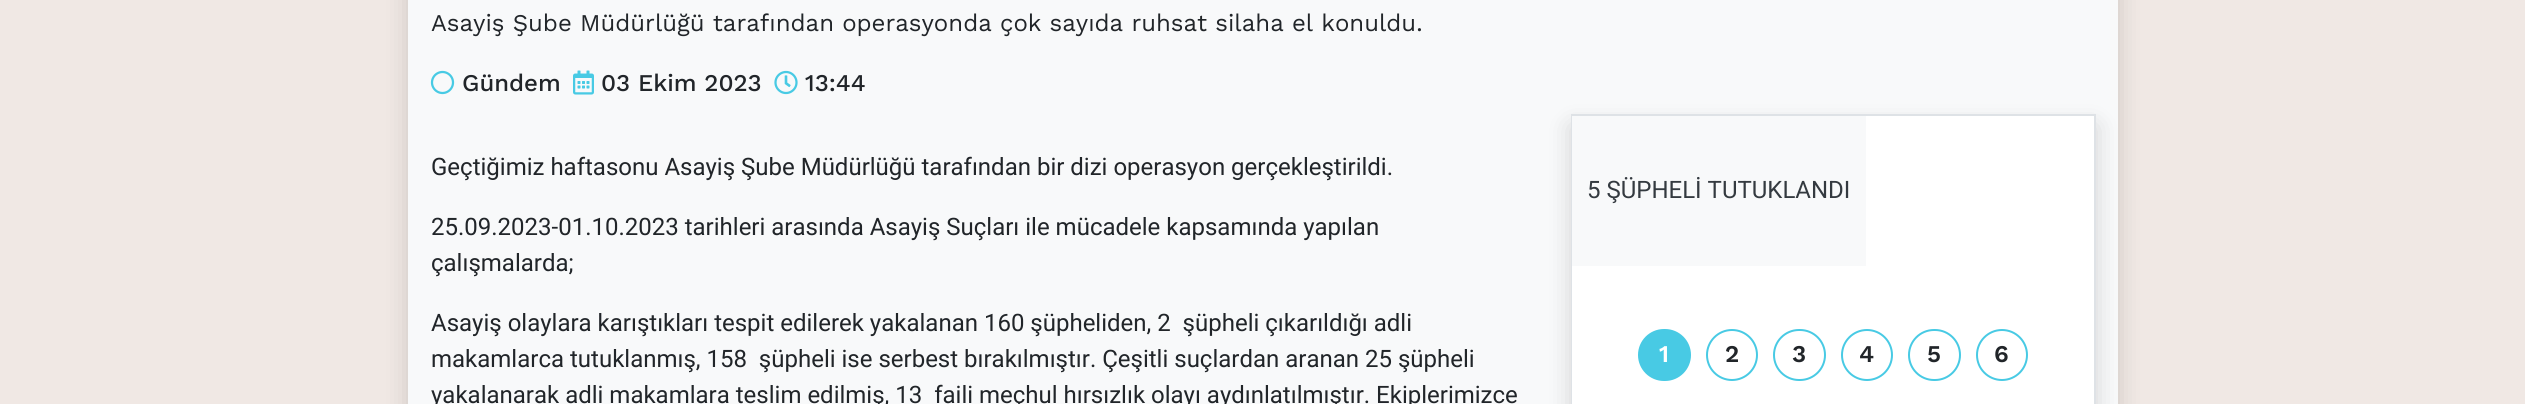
import math
import cairocffi as cairo

surface = cairo.ImageSurface(cairo.FORMAT_RGB24, 2525, 404)
cr = cairo.Context(surface)
options = cairo.FontOptions()
options.set_hint_metrics(cairo.HINT_METRICS_OFF)
options.set_hint_style(cairo.HINT_STYLE_NONE)
cr.set_font_options(options)
cr.set_miter_limit(4)


def use_color(code):
    cr.set_source_rgb(*(v / 255 for v in bytes.fromhex(code[-6:])))


def round_rect(x, y, w, h, r):
    cr.new_sub_path()
    for i, (u, v) in enumerate([(x + w - r, y + h - r), (x + r, y + h - r), (x + r, y + r), (x + w - r, y + r)]):
        cr.arc(u, v, r, i * math.pi / 2, (i + 1) * math.pi / 2)
    cr.close_path()


def shadow(x, y, w, h, r, blur, alpha):
    cr.push_group_with_content(cairo.CONTENT_ALPHA)
    cr.set_operator(cairo.OPERATOR_SOURCE)
    for i in range(15, -16, -2):
        e = blur * i / 6
        if min(w, h) + 2 * e > 0:
            cr.set_source_rgba(0, 0, 0, alpha * math.erfc((i - 1) / 8.5) / 2)
            round_rect(x - e, y - e, w + 2 * e, h + 2 * e, max(0, min(r + e + blur * .6, min(w, h) / 2 + e)))
            cr.fill()
    cr.mask(cr.pop_group())


def picture(path, x, y, w, h):
    cr.save()
    cr.set_source_surface(cairo.ImageSurface.create_from_png(path), x, y)
    cr.rectangle(x, y, w, h)
    cr.fill()
    cr.restore()


use_color("#f0e8e4")
cr.paint()
use_color("#000000")
shadow(408, -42, 1710, 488, 6, 12, 0.15)
use_color("#f8f9fa")
cr.rectangle(408, 0, 1710, 404)
cr.fill()
cr.select_font_face("Work Sans")
cr.set_font_size(24)
use_color("#212529")
cr.move_to(431, 31)
cr.show_text("Asayiş Şube Müdürlüğü tarafından operasyonda çok sayıda ruhsat silaha el konuldu.")
picture("img1.png", 430, 70, 25, 25)
cr.select_font_face("Work Sans Medium")
cr.move_to(462, 91)
cr.show_text("Gündem")
picture("img2.png", 573, 70, 21, 25)
cr.move_to(601, 91)
cr.show_text("03 Ekim 2023")
picture("img3.png", 774, 70, 24, 25)
cr.move_to(805, 91)
cr.show_text("13:44")
cr.select_font_face("Roboto")
cr.move_to(431, 175)
cr.show_text("Geçtiğimiz haftasonu Asayiş Şube Müdürlüğü tarafından bir dizi operasyon gerçekleştirildi.")
cr.move_to(431, 235)
cr.show_text("25.09.2023-01.10.2023 tarihleri arasında Asayiş Suçları ile mücadele kapsamında yapılan")
cr.move_to(431, 271)
cr.show_text("çalışmalarda;")
cr.move_to(431, 331)
cr.show_text("Asayiş olaylara karıştıkları tespit edilerek yakalanan 160 şüpheliden, 2  şüpheli çıkarıldığı adli")
cr.move_to(431, 367)
cr.show_text("makamlarca tutuklanmış, 158  şüpheli ise serbest bırakılmıştır. Çeşitli suçlardan aranan 25 şüpheli")
cr.move_to(431, 403)
cr.show_text("yakalanarak adli makamlara teslim edilmiş, 13  faili meçhul hırsızlık olayı aydınlatılmıştır. Ekiplerimizce")
use_color("#000000")
shadow(1571, 126, 525, 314, 0, 12, 0.15)
cr.rectangle(1572, 115, 523, 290)
use_color("#dee2e6")
cr.stroke()
use_color("#ffffff")
cr.rectangle(1572, 116, 522, 288)
cr.fill()
use_color("#f8f9fa")
cr.rectangle(1572, 116, 294, 150)
cr.fill()
use_color("#343a40")
cr.move_to(1587, 198)
cr.show_text("5 ŞÜPHELİ TUTUKLANDI")
use_color("#48cae4")
round_rect(1639, 330, 51, 50, 25)
cr.fill_preserve()
cr.stroke()
cr.select_font_face("Work Sans SemiBold")
use_color("#ffffff")
cr.move_to(1659, 362)
cr.show_text("1")
cr.new_path()
cr.arc(1732, 355, 25, 0, 2 * math.pi)
use_color("#48cae4")
cr.stroke()
use_color("#212529")
cr.move_to(1725, 362)
cr.show_text("2")
round_rect(1774, 330, 51, 50, 25)
use_color("#48cae4")
cr.stroke()
use_color("#212529")
cr.move_to(1792, 362)
cr.show_text("3")
cr.new_path()
cr.arc(1867, 355, 25, 0, 2 * math.pi)
use_color("#48cae4")
cr.stroke()
use_color("#212529")
cr.move_to(1859, 362)
cr.show_text("4")
round_rect(1909, 330, 51, 50, 25)
use_color("#48cae4")
cr.stroke()
use_color("#212529")
cr.move_to(1927, 362)
cr.show_text("5")
cr.new_path()
cr.arc(2002, 355, 25, 0, 2 * math.pi)
use_color("#48cae4")
cr.stroke()
use_color("#212529")
cr.move_to(1994, 362)
cr.show_text("6")
surface.write_to_png("result.png")
